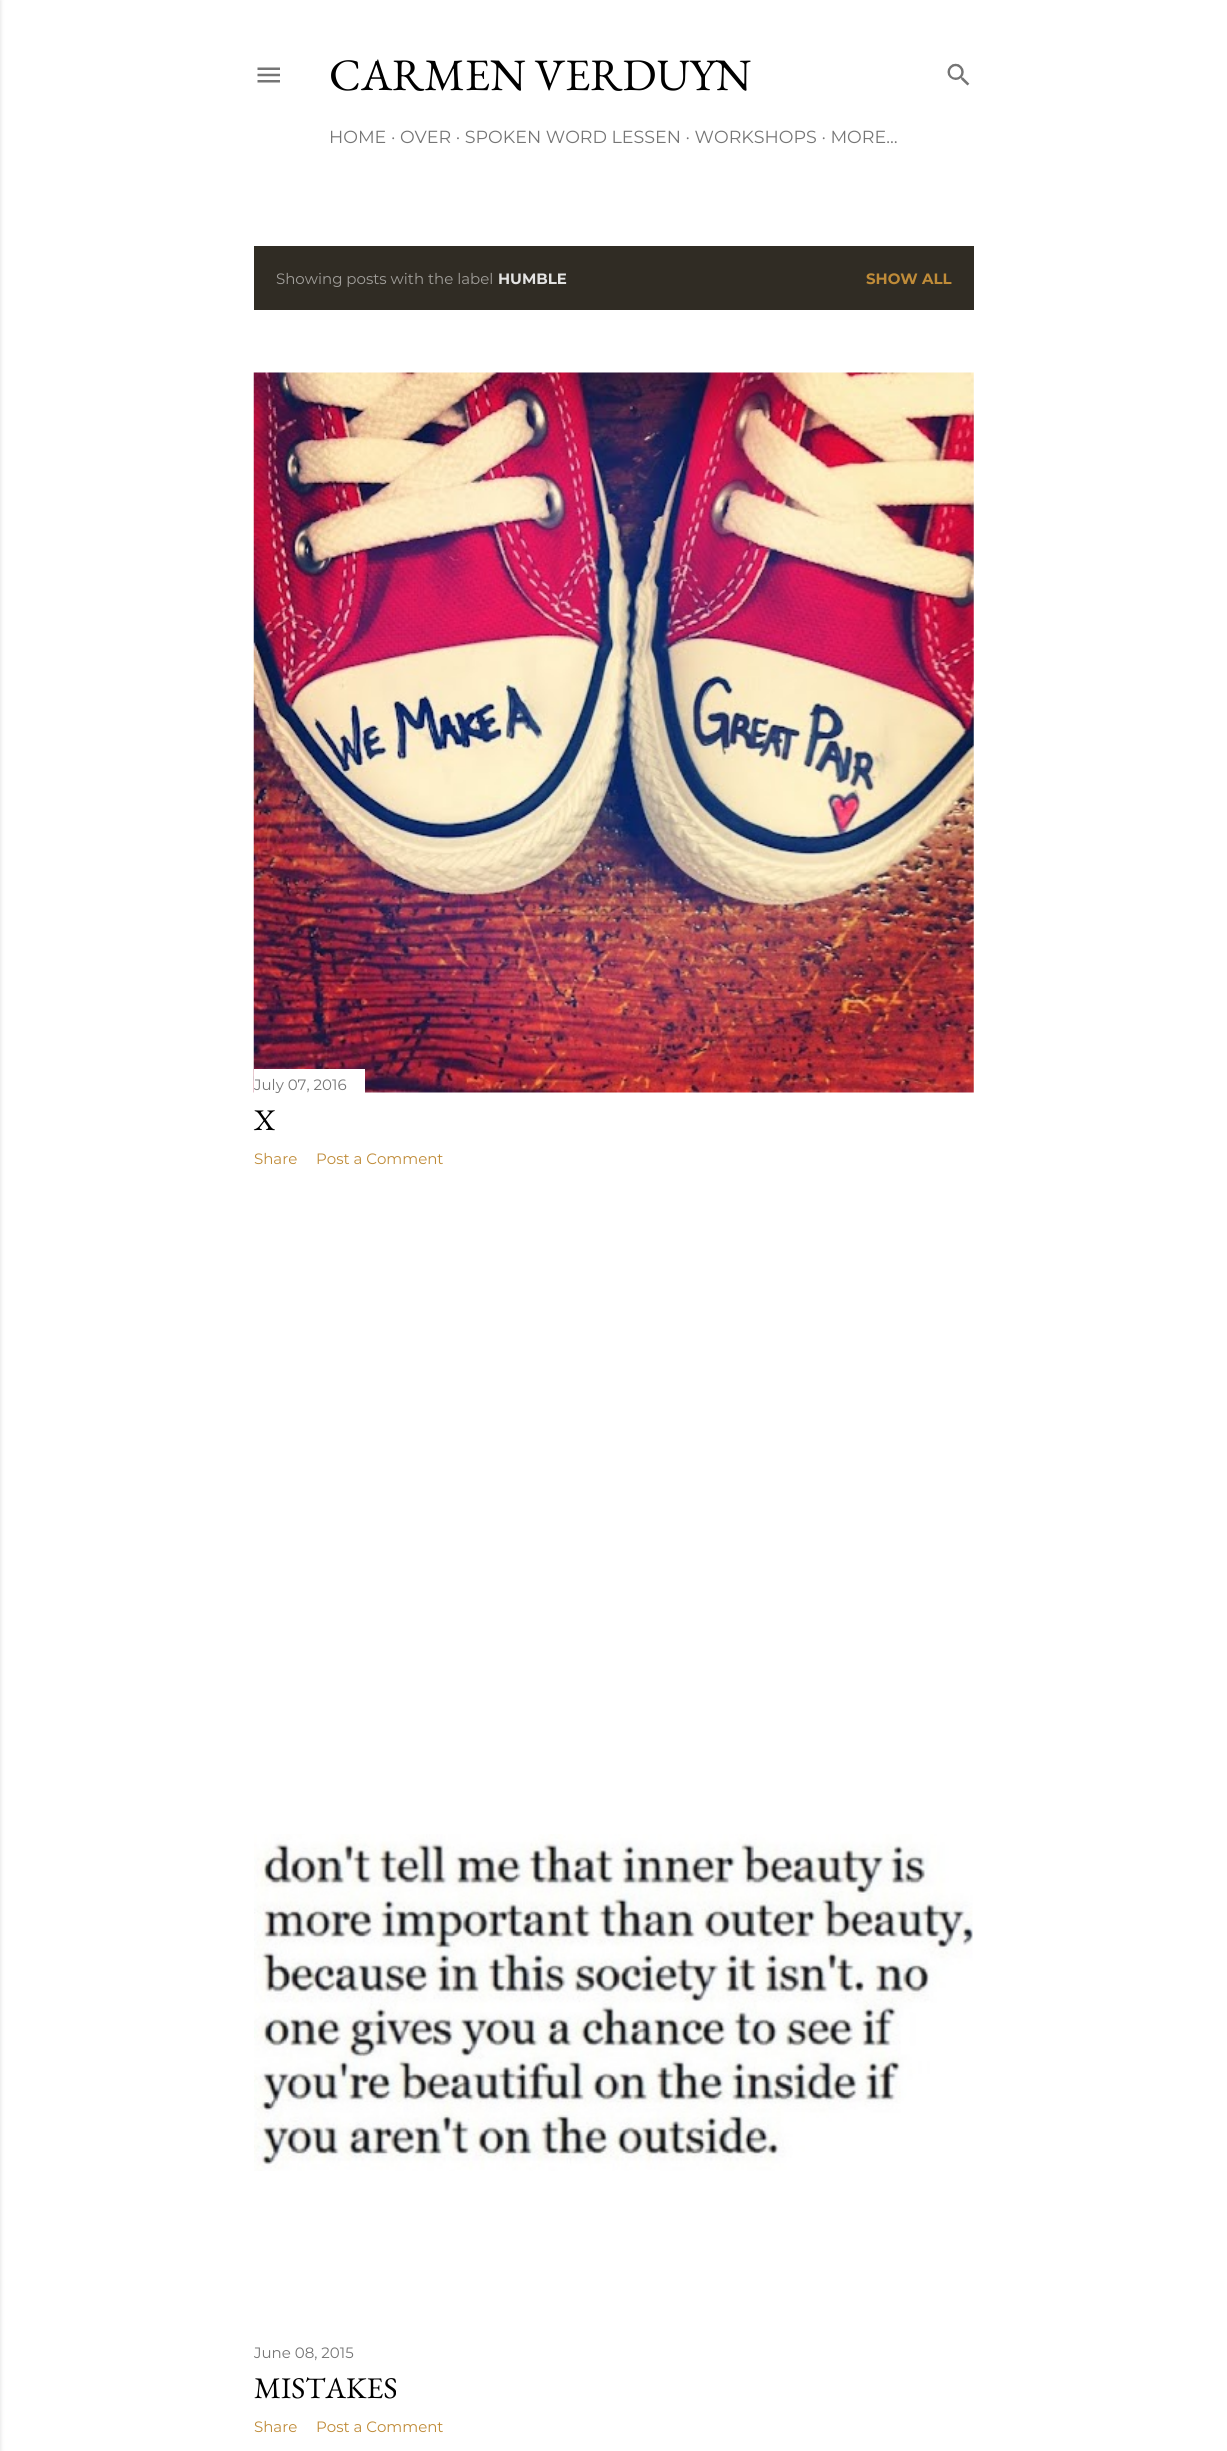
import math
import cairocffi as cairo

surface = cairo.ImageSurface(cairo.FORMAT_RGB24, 1227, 2451)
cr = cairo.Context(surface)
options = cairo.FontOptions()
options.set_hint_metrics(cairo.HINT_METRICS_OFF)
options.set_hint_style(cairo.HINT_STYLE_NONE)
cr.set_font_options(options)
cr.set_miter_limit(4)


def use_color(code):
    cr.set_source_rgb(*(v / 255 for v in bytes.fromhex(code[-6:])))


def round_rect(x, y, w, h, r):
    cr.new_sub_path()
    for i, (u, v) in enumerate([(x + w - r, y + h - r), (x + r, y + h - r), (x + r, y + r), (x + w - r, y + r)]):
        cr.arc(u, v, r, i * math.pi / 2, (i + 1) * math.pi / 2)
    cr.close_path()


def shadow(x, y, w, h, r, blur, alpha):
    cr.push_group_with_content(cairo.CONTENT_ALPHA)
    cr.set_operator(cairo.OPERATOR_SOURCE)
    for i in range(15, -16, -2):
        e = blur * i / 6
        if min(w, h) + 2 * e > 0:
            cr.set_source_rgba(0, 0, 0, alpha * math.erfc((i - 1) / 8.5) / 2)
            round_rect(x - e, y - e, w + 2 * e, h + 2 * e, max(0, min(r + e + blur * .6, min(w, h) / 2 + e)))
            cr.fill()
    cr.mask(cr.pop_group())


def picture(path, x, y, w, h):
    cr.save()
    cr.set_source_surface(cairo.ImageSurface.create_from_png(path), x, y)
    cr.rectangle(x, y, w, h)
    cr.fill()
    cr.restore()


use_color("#ffffff")
cr.paint()
use_color("#000000")
shadow(-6, 0, 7, 2451, 0, 2, 0.1)
picture("img1.png", 257, 67, 23, 16)
cr.select_font_face("EB Garamond")
cr.set_font_size(45)
use_color("#000000")
cr.move_to(329, 90)
cr.show_text("CARMEN VERDUYN")
cr.select_font_face("Montserrat")
cr.set_font_size(17.5)
use_color("#757575")
cr.move_to(329, 143)
cr.show_text("HOME · OVER · SPOKEN WORD LESSEN · WORKSHOPS · MORE…")
picture("img2.png", 947, 63, 23, 23)
use_color("#302c24")
cr.rectangle(254, 246, 720, 64)
cr.fill()
cr.set_font_size(15)
use_color("#a09e9a")
cr.move_to(276, 284)
cr.show_text("Showing posts with the label")
cr.select_font_face("Montserrat", cairo.FONT_SLANT_NORMAL, cairo.FONT_WEIGHT_BOLD)
use_color("#e4e4e3")
cr.move_to(498, 284)
cr.show_text("HUMBLE")
use_color("#bf8b38")
cr.move_to(866, 284)
cr.show_text("SHOW ALL")
picture("img3.png", 253, 372, 721, 721)
use_color("#ffffff")
cr.rectangle(254, 1069, 111, 24)
cr.fill()
cr.select_font_face("Montserrat")
use_color("#757575")
cr.move_to(254, 1090)
cr.show_text("July 07, 2016")
cr.select_font_face("EB Garamond")
cr.set_font_size(30)
use_color("#000000")
cr.move_to(254, 1130)
cr.show_text("X")
cr.select_font_face("Montserrat")
cr.set_font_size(15)
use_color("#bf8b38")
cr.move_to(254, 1164)
cr.show_text("Share")
cr.move_to(316, 1164)
cr.show_text("Post a Comment")
picture("img4.png", 254, 1834, 719, 337)
use_color("#757575")
cr.move_to(254, 2358)
cr.show_text("June 08, 2015")
cr.select_font_face("EB Garamond")
cr.set_font_size(30)
use_color("#000000")
cr.move_to(254, 2398)
cr.show_text("MISTAKES")
cr.select_font_face("Montserrat")
cr.set_font_size(15)
use_color("#bf8b38")
cr.move_to(254, 2432)
cr.show_text("Share")
cr.move_to(316, 2432)
cr.show_text("Post a Comment")
surface.write_to_png("result.png")
